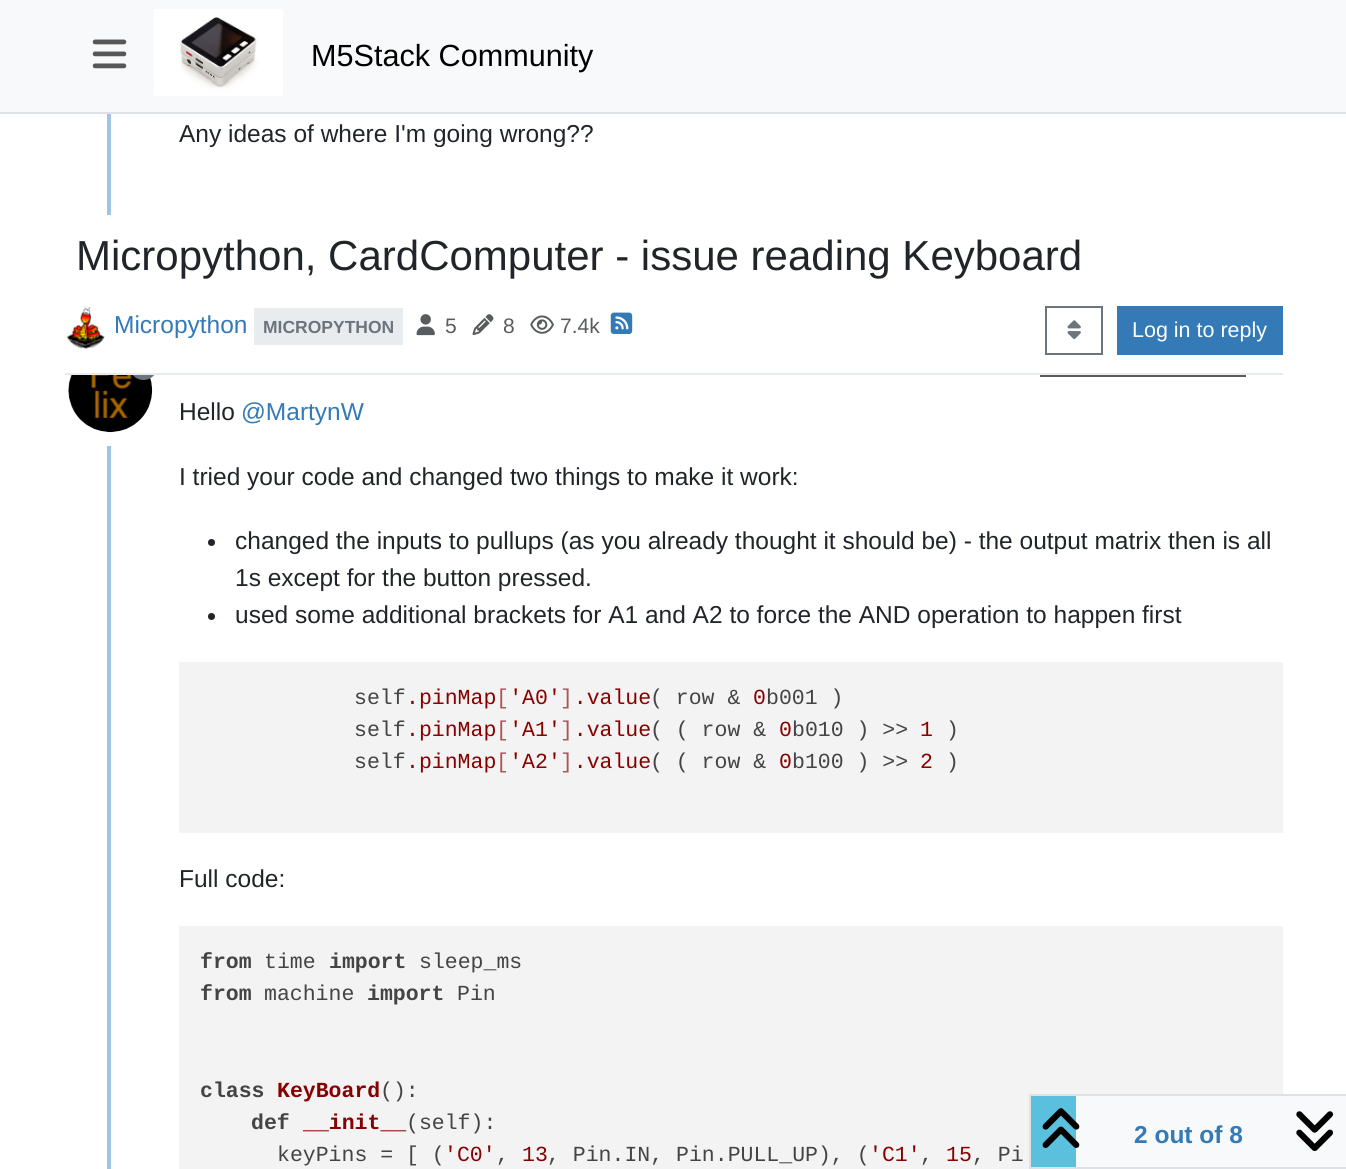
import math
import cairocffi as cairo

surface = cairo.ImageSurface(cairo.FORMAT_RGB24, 1346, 1169)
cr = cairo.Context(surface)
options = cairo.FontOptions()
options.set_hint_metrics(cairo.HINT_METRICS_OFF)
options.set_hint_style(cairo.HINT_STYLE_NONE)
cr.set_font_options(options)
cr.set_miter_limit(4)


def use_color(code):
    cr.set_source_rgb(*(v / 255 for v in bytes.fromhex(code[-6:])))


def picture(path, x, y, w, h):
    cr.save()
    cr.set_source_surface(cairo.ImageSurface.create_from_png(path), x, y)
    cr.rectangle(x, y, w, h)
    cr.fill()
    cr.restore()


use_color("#ffffff")
cr.paint()
use_color("#f8f9fa")
cr.rectangle(0, 0, 1346, 112)
cr.fill()
use_color("#dee2e6")
cr.rectangle(0, 112, 1346, 2)
cr.fill()
picture("img1.png", 92, 39, 35, 30)
picture("img2.png", 154, 9, 129, 87)
cr.save()
cr.rectangle(312, 25, 281, 64)
cr.clip()
cr.select_font_face("Liberation Sans")
cr.set_font_size(30.6)
use_color("#000000")
cr.move_to(311, 66)
cr.show_text("M5Stack Community")
cr.restore()
use_color("#a0c4e4")
cr.rectangle(107, 114, 4, 101)
cr.fill()
cr.select_font_face("Liberation Sans")
cr.set_font_size(24.5)
use_color("#212529")
cr.move_to(179, 142)
cr.show_text("Any ideas of where I'm going wrong??")
use_color("#a0c4e4")
cr.rectangle(107, 431, 4, 738)
cr.fill()
cr.arc(110, 390, 49, 0, 2 * math.pi)
use_color("#ffffff")
cr.set_line_width(14)
cr.stroke()
picture("img3.png", 68, 375, 85, 58)
use_color("#6c757d")
cr.new_path()
cr.move_to(143.5, 380)
cr.curve_to(162, 379.5, 162, 352, 143.5, 352)
cr.curve_to(125, 352, 125, 379.5, 143.5, 380)
cr.close_path()
cr.fill()
use_color("#595c5f")
cr.rectangle(1040, 375, 206, 2)
cr.fill()
use_color("#212529")
cr.move_to(179, 420)
cr.show_text("Hello")
use_color("#337ab7")
cr.move_to(241, 420)
cr.show_text("@MartynW")
use_color("#212529")
cr.move_to(179, 485)
cr.show_text("I tried your code and changed two things to make it work:")
cr.new_path()
cr.arc(211.5, 542.5, 3.5, 0, 2 * math.pi)
cr.fill()
cr.move_to(235, 549)
cr.show_text("changed the inputs to pullups (as you already thought it should be) - the output matrix then is all")
cr.move_to(235, 586)
cr.show_text("1s except for the button pressed.")
cr.new_path()
cr.arc(211.5, 616.5, 3.5, 0, 2 * math.pi)
cr.fill()
cr.move_to(235, 623)
cr.show_text("used some additional brackets for A1 and A2 to force the AND operation to happen first")
use_color("#f3f3f3")
cr.rectangle(179, 662, 1104, 171)
cr.fill()
cr.select_font_face("Liberation Mono")
cr.set_font_size(21.5)
use_color("#444444")
cr.move_to(354, 704)
cr.show_text("self")
use_color("#880000")
cr.move_to(406, 704)
cr.show_text(".pinMap 'A0' .value")
use_color("#ab5656")
cr.move_to(496, 704)
cr.show_text("[")
cr.move_to(560, 704)
cr.show_text("]")
use_color("#444444")
cr.move_to(650, 704)
cr.show_text("( row &")
use_color("#880000")
cr.move_to(753, 704)
cr.show_text("0")
use_color("#444444")
cr.move_to(766, 704)
cr.show_text("b001 )")
cr.move_to(354, 736)
cr.show_text("self")
use_color("#880000")
cr.move_to(406, 736)
cr.show_text(".pinMap 'A1' .value")
use_color("#ab5656")
cr.move_to(496, 736)
cr.show_text("[")
cr.move_to(560, 736)
cr.show_text("]")
use_color("#444444")
cr.move_to(650, 736)
cr.show_text("( ( row &")
use_color("#880000")
cr.move_to(779, 736)
cr.show_text("0")
use_color("#444444")
cr.move_to(792, 736)
cr.show_text("b010 ) >>")
use_color("#880000")
cr.move_to(920, 736)
cr.show_text("1")
use_color("#444444")
cr.move_to(946, 736)
cr.show_text(")")
cr.move_to(354, 768)
cr.show_text("self")
use_color("#880000")
cr.move_to(406, 768)
cr.show_text(".pinMap 'A2' .value")
use_color("#ab5656")
cr.move_to(496, 768)
cr.show_text("[")
cr.move_to(560, 768)
cr.show_text("]")
use_color("#444444")
cr.move_to(650, 768)
cr.show_text("( ( row &")
use_color("#880000")
cr.move_to(779, 768)
cr.show_text("0")
use_color("#444444")
cr.move_to(792, 768)
cr.show_text("b100 ) >>")
use_color("#880000")
cr.move_to(920, 768)
cr.show_text("2")
use_color("#444444")
cr.move_to(946, 768)
cr.show_text(")")
cr.select_font_face("Liberation Sans")
cr.set_font_size(24.5)
use_color("#212529")
cr.move_to(179, 887)
cr.show_text("Full code:")
use_color("#f3f3f3")
cr.rectangle(179, 926, 1104, 243)
cr.fill()
cr.select_font_face("Liberation Mono", cairo.FONT_SLANT_NORMAL, cairo.FONT_WEIGHT_BOLD)
cr.set_font_size(21.5)
use_color("#444444")
cr.move_to(200, 968)
cr.show_text("from")
cr.select_font_face("Liberation Mono")
cr.move_to(264, 968)
cr.show_text("time")
cr.select_font_face("Liberation Mono", cairo.FONT_SLANT_NORMAL, cairo.FONT_WEIGHT_BOLD)
cr.move_to(329, 968)
cr.show_text("import")
cr.select_font_face("Liberation Mono")
cr.move_to(419, 968)
cr.show_text("sleep_ms")
cr.select_font_face("Liberation Mono", cairo.FONT_SLANT_NORMAL, cairo.FONT_WEIGHT_BOLD)
cr.move_to(200, 1000)
cr.show_text("from")
cr.select_font_face("Liberation Mono")
cr.move_to(264, 1000)
cr.show_text("machine")
cr.select_font_face("Liberation Mono", cairo.FONT_SLANT_NORMAL, cairo.FONT_WEIGHT_BOLD)
cr.move_to(367, 1000)
cr.show_text("import")
cr.select_font_face("Liberation Mono")
cr.move_to(457, 1000)
cr.show_text("Pin")
cr.select_font_face("Liberation Mono", cairo.FONT_SLANT_NORMAL, cairo.FONT_WEIGHT_BOLD)
cr.move_to(200, 1097)
cr.show_text("class")
use_color("#880000")
cr.move_to(277, 1097)
cr.show_text("KeyBoard")
cr.select_font_face("Liberation Mono")
use_color("#444444")
cr.move_to(380, 1097)
cr.show_text("():")
cr.select_font_face("Liberation Mono", cairo.FONT_SLANT_NORMAL, cairo.FONT_WEIGHT_BOLD)
cr.move_to(251, 1129)
cr.show_text("def")
use_color("#880000")
cr.move_to(303, 1129)
cr.show_text("__init__")
cr.select_font_face("Liberation Mono")
use_color("#444444")
cr.move_to(406, 1129)
cr.show_text("(self):")
cr.move_to(277, 1161)
cr.show_text("keyPins = [ (")
use_color("#880000")
cr.move_to(444, 1161)
cr.show_text("'C0'")
use_color("#444444")
cr.move_to(496, 1161)
cr.show_text(",")
use_color("#880000")
cr.move_to(522, 1161)
cr.show_text("13")
use_color("#444444")
cr.move_to(547, 1161)
cr.show_text(", Pin.IN, Pin.PULL_UP), (")
use_color("#880000")
cr.move_to(869, 1161)
cr.show_text("'C1'")
use_color("#444444")
cr.move_to(920, 1161)
cr.show_text(",")
use_color("#880000")
cr.move_to(946, 1161)
cr.show_text("15")
use_color("#444444")
cr.move_to(972, 1161)
cr.show_text(", Pi")
use_color("#ffffff")
cr.rectangle(129, 352, 29, 21)
cr.fill()
cr.select_font_face("Liberation Sans")
cr.set_font_size(42)
use_color("#212529")
cr.move_to(76, 270)
cr.show_text("Micropython, CardComputer - issue reading Keyboard")
use_color("#e9ecef")
cr.rectangle(65, 373, 1218, 2)
cr.fill()
picture("img4.png", 66, 306, 39, 43)
cr.set_font_size(24.5)
use_color("#337ab7")
cr.move_to(114, 333)
cr.show_text("Micropython")
use_color("#e9ecef")
cr.rectangle(254, 308, 149, 37)
cr.fill()
cr.select_font_face("Liberation Sans", cairo.FONT_SLANT_NORMAL, cairo.FONT_WEIGHT_BOLD)
cr.set_font_size(17.5)
use_color("#6c757d")
cr.move_to(263, 333)
cr.show_text("MICROPYTHON")
picture("img5.png", 416, 314, 19, 22)
cr.select_font_face("Liberation Sans")
cr.set_font_size(21)
use_color("#595c5f")
cr.move_to(445, 333)
cr.show_text("5")
picture("img6.png", 472, 314, 22, 22)
cr.move_to(503, 333)
cr.show_text("8")
picture("img7.png", 530, 315, 24, 19)
cr.move_to(560, 333)
cr.show_text("7.4k")
picture("img8.png", 610, 312, 23, 22)
cr.rectangle(1046, 307, 56, 47)
use_color("#6c757d")
cr.set_line_width(2)
cr.stroke()
picture("img9.png", 1067, 320, 14, 20)
use_color("#337ab7")
cr.rectangle(1117, 306, 166, 49)
cr.fill()
cr.set_font_size(21.5)
use_color("#ffffff")
cr.move_to(1132, 337)
cr.show_text("Log in to reply")
use_color("#f8f9fa")
cr.rectangle(1076, 1096, 270, 71)
cr.fill()
cr.rectangle(1030, 1095, 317, 73)
use_color("#dee2e6")
cr.stroke()
use_color("#5bc0de")
cr.rectangle(1031, 1096, 45, 71)
cr.fill()
picture("img10.png", 1042, 1108, 38, 40)
cr.select_font_face("Liberation Sans", cairo.FONT_SLANT_NORMAL, cairo.FONT_WEIGHT_BOLD)
cr.set_font_size(24.5)
use_color("#337ab7")
cr.move_to(1134, 1143)
cr.show_text("2 out of 8")
picture("img11.png", 1296, 1111, 37, 40)
surface.write_to_png("result.png")
